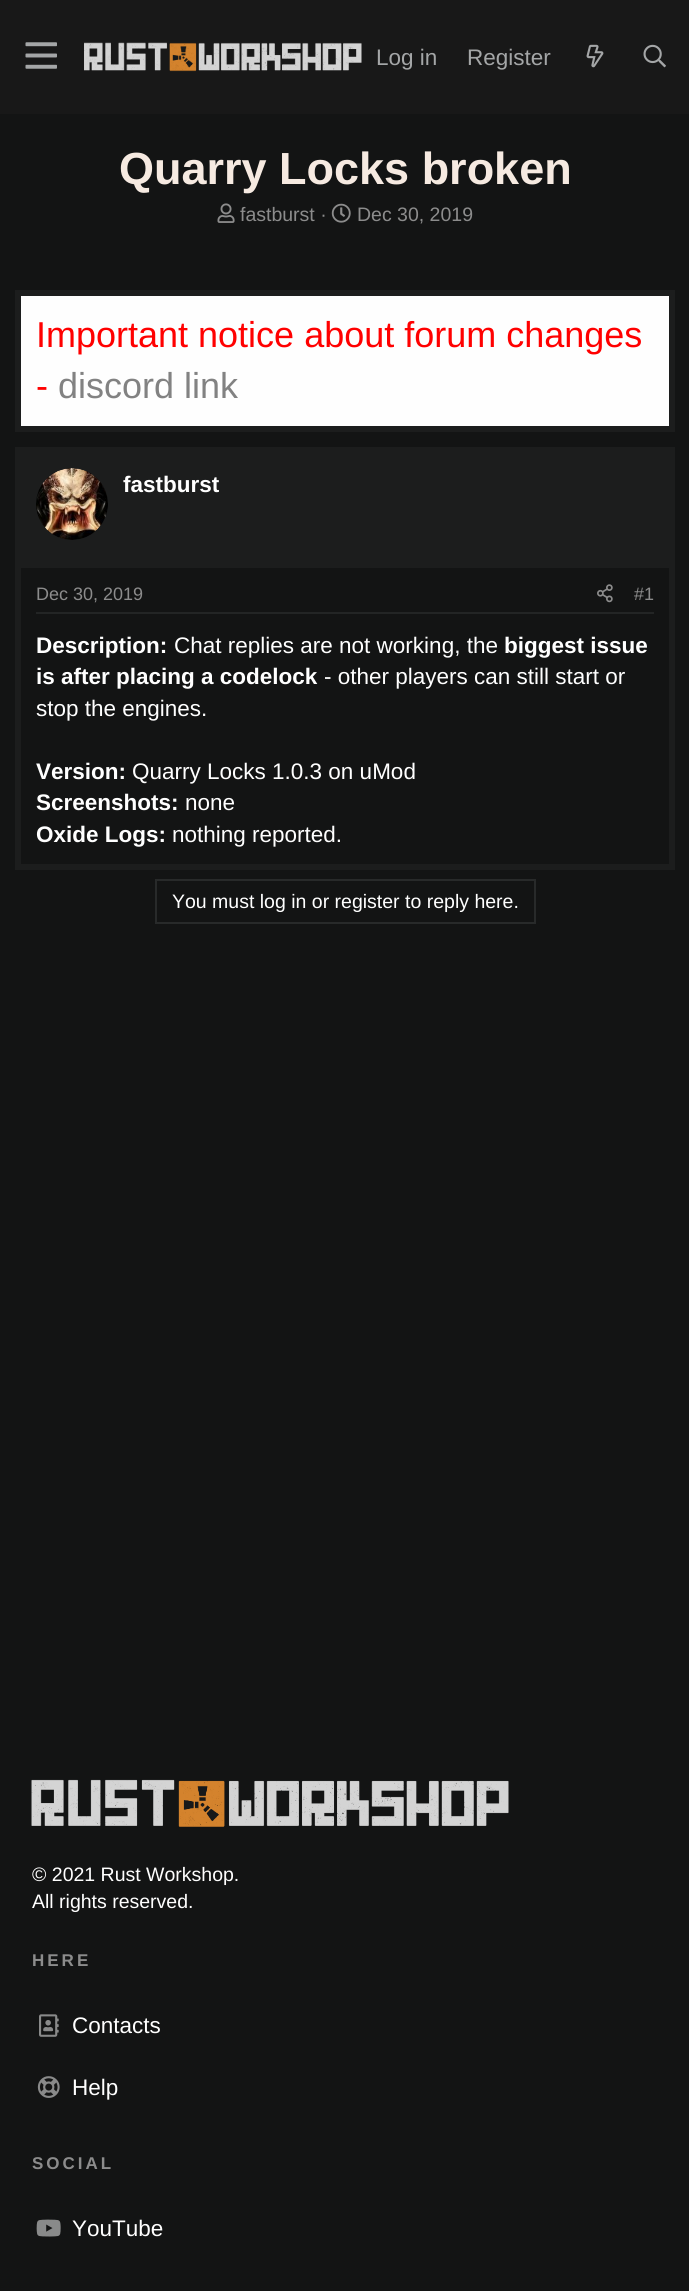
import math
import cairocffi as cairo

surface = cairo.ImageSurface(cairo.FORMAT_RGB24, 689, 2291)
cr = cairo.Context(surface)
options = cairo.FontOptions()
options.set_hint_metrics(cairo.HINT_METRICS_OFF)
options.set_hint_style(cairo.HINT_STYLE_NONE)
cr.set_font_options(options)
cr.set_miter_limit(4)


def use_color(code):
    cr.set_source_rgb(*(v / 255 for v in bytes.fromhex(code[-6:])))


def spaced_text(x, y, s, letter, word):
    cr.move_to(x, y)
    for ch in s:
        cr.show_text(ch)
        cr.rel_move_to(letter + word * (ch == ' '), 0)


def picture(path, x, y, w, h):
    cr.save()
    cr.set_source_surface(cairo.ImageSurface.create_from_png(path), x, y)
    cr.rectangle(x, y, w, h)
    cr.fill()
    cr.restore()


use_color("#131414")
cr.paint()
use_color("#181818")
cr.rectangle(0, 0, 689, 114)
cr.fill()
picture("img1.png", 25, 42, 32, 27)
picture("img2.png", 84, 42, 278, 30)
cr.select_font_face("Liberation Sans")
cr.set_font_size(22.5)
use_color("#a4a6a7")
cr.move_to(376, 65)
cr.show_text("Log in")
cr.move_to(467, 65)
cr.show_text("Register")
picture("img3.png", 586, 44, 18, 24)
picture("img4.png", 643, 44, 23, 24)
cr.select_font_face("Liberation Sans", cairo.FONT_SLANT_NORMAL, cairo.FONT_WEIGHT_BOLD)
cr.set_font_size(45)
use_color("#f6eae1")
cr.move_to(119, 184)
cr.show_text("Quarry Locks broken")
picture("img5.png", 217, 203, 18, 20)
cr.select_font_face("Liberation Sans")
cr.set_font_size(19.5)
use_color("#8c8c8c")
cr.move_to(240, 221)
cr.show_text("fastburst ·")
picture("img6.png", 331, 203, 20, 20)
cr.move_to(357, 221)
cr.show_text("Dec 30, 2019")
use_color("#fefefe")
cr.rectangle(18, 293, 654, 136)
cr.fill_preserve()
use_color("#1c1d1d")
cr.set_line_width(6)
cr.stroke()
cr.set_font_size(36)
use_color("#ff0000")
cr.move_to(36, 347)
cr.show_text("Important notice about forum changes")
cr.move_to(36, 398)
cr.show_text("-")
use_color("#828282")
cr.move_to(58, 398)
cr.show_text("discord link")
use_color("#1c1d1d")
cr.rectangle(669, 447, 6, 423)
cr.fill()
cr.rectangle(15, 447, 6, 423)
cr.fill()
cr.rectangle(21, 447, 648, 121)
cr.fill()
cr.rectangle(21, 864, 648, 6)
cr.fill()
use_color("#131414")
cr.arc(72, 504, 36, 0, 2 * math.pi)
cr.fill()
picture("img7.png", 36, 468, 72, 72)
cr.select_font_face("Liberation Sans", cairo.FONT_SLANT_NORMAL, cairo.FONT_WEIGHT_BOLD)
cr.set_font_size(22.5)
use_color("#ffffff")
cr.move_to(123, 492)
cr.show_text("fastburst")
use_color("#232525")
cr.rectangle(36, 612, 618, 2)
cr.fill()
cr.select_font_face("Liberation Sans")
cr.set_font_size(18)
use_color("#8c8c8c")
cr.move_to(36, 600)
cr.show_text("Dec 30, 2019")
picture("img8.png", 597, 584, 16, 19)
cr.move_to(634, 600)
cr.show_text("#1")
cr.select_font_face("Liberation Sans", cairo.FONT_SLANT_NORMAL, cairo.FONT_WEIGHT_BOLD)
cr.set_font_size(22.5)
use_color("#ffffff")
cr.move_to(36, 653)
cr.show_text("Description:")
cr.select_font_face("Liberation Sans")
cr.move_to(174, 653)
cr.show_text("Chat replies are not working, the")
cr.select_font_face("Liberation Sans", cairo.FONT_SLANT_NORMAL, cairo.FONT_WEIGHT_BOLD)
cr.move_to(504, 653)
cr.show_text("biggest issue")
cr.move_to(36, 684)
cr.show_text("is after placing a codelock")
cr.select_font_face("Liberation Sans")
cr.move_to(324, 684)
cr.show_text("- other players can still start or")
cr.move_to(36, 716)
cr.show_text("stop the engines.")
cr.select_font_face("Liberation Sans", cairo.FONT_SLANT_NORMAL, cairo.FONT_WEIGHT_BOLD)
cr.move_to(36, 779)
cr.show_text("Version:")
cr.select_font_face("Liberation Sans")
cr.move_to(132, 779)
cr.show_text("Quarry Locks 1.0.3 on uMod")
cr.select_font_face("Liberation Sans", cairo.FONT_SLANT_NORMAL, cairo.FONT_WEIGHT_BOLD)
cr.move_to(36, 810)
cr.show_text("Screenshots:")
cr.select_font_face("Liberation Sans")
cr.move_to(185, 810)
cr.show_text("none")
cr.select_font_face("Liberation Sans", cairo.FONT_SLANT_NORMAL, cairo.FONT_WEIGHT_BOLD)
cr.move_to(36, 842)
cr.show_text("Oxide Logs:")
cr.select_font_face("Liberation Sans")
cr.move_to(172, 842)
cr.show_text("nothing reported.")
cr.rectangle(156, 880, 379, 43)
use_color("#282a2a")
cr.set_line_width(2)
cr.stroke()
cr.set_font_size(19.5)
use_color("#ffffff")
cr.move_to(172, 908)
cr.show_text("You must log in or register to reply here.")
picture("img9.png", 31, 1779, 478, 48)
cr.move_to(32, 1881)
cr.show_text("© 2021 Rust Workshop.")
cr.move_to(32, 1908)
cr.show_text("All rights reserved.")
cr.select_font_face("Liberation Sans", cairo.FONT_SLANT_NORMAL, cairo.FONT_WEIGHT_BOLD)
cr.set_font_size(17)
use_color("#8c8c8c")
spaced_text(32, 1966, "HERE", 3, 0)
picture("img10.png", 39, 2014, 20, 23)
cr.select_font_face("Liberation Sans")
cr.set_font_size(22.5)
use_color("#ffffff")
cr.move_to(72, 2033)
cr.show_text("Contacts")
picture("img11.png", 37, 2076, 23, 22)
cr.move_to(72, 2095)
cr.show_text("Help")
cr.select_font_face("Liberation Sans", cairo.FONT_SLANT_NORMAL, cairo.FONT_WEIGHT_BOLD)
cr.set_font_size(17)
use_color("#8c8c8c")
spaced_text(32, 2169, "SOCIAL", 3, 0)
picture("img12.png", 36, 2219, 25, 18)
cr.select_font_face("Liberation Sans")
cr.set_font_size(22.5)
use_color("#ffffff")
cr.move_to(72, 2236)
cr.show_text("YouTube")
surface.write_to_png("result.png")
